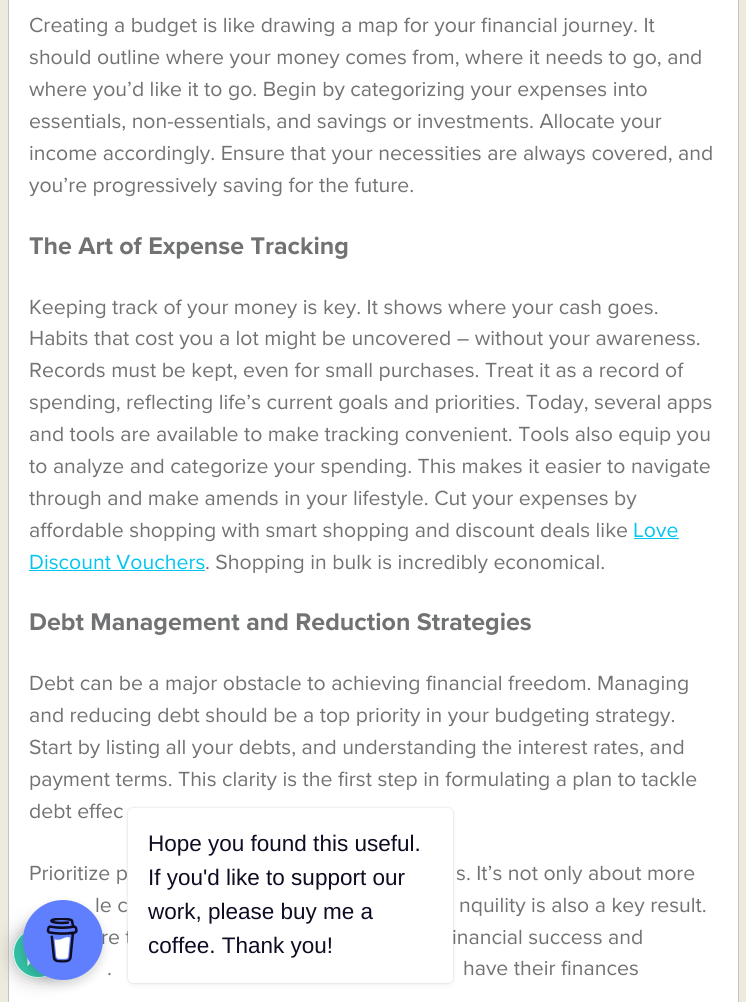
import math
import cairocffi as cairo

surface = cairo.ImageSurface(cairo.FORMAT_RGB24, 746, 1002)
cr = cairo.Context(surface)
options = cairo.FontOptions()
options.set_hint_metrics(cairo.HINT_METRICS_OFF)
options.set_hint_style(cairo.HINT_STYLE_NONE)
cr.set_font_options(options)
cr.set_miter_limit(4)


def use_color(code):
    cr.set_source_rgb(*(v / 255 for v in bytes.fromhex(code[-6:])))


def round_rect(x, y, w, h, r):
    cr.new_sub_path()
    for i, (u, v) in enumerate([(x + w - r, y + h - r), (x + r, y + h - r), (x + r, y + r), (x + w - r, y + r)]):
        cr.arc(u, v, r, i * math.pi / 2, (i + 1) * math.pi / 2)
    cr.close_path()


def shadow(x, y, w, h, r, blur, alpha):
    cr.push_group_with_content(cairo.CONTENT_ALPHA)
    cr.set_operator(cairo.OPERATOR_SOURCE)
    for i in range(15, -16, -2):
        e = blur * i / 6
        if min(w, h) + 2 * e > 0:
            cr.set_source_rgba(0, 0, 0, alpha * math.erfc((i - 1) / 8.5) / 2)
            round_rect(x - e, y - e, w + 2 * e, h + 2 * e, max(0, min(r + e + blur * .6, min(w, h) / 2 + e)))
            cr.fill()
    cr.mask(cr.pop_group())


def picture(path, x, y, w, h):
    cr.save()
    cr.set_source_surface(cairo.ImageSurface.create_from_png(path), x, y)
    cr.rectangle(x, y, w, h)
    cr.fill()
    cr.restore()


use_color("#eeebde")
cr.paint()
use_color("#ffffff")
cr.rectangle(8.5, -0.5, 730, 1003)
cr.fill_preserve()
use_color("#c5c3c0")
cr.set_line_width(1)
cr.stroke()
cr.select_font_face("Proxima Nova")
cr.set_font_size(21.25)
use_color("#717274")
cr.move_to(29, 32)
cr.show_text("Creating a budget is like drawing a map for your financial journey. It")
cr.move_to(29, 64)
cr.show_text("should outline where your money comes from, where it needs to go, and")
cr.move_to(29, 96)
cr.show_text("where you’d like it to go. Begin by categorizing your expenses into")
cr.move_to(29, 128)
cr.show_text("essentials, non-essentials, and savings or investments. Allocate your")
cr.move_to(29, 160)
cr.show_text("income accordingly. Ensure that your necessities are always covered, and")
cr.move_to(29, 192)
cr.show_text("you’re progressively saving for the future.")
cr.select_font_face("Proxima Nova", cairo.FONT_SLANT_NORMAL, cairo.FONT_WEIGHT_BOLD)
cr.set_font_size(25)
cr.move_to(29, 254)
cr.show_text("The Art of Expense Tracking")
cr.select_font_face("Proxima Nova")
cr.set_font_size(21.25)
cr.move_to(29, 314)
cr.show_text("Keeping track of your money is key. It shows where your cash goes.")
cr.move_to(29, 345)
cr.show_text("Habits that cost you a lot might be uncovered – without your awareness.")
cr.move_to(29, 377)
cr.show_text("Records must be kept, even for small purchases. Treat it as a record of")
cr.move_to(29, 409)
cr.show_text("spending, reflecting life’s current goals and priorities. Today, several apps")
cr.move_to(29, 441)
cr.show_text("and tools are available to make tracking convenient. Tools also equip you")
cr.move_to(29, 473)
cr.show_text("to analyze and categorize your spending. This makes it easier to navigate")
cr.move_to(29, 505)
cr.show_text("through and make amends in your lifestyle. Cut your expenses by")
cr.move_to(29, 537)
cr.show_text("affordable shopping with smart shopping and discount deals like")
use_color("#00c6ee")
cr.move_to(633, 537)
cr.show_text("Love")
cr.rectangle(634, 538, 45, 1)
cr.fill()
cr.move_to(29, 569)
cr.show_text("Discount Vouchers")
cr.rectangle(29, 570, 176, 1)
cr.fill()
use_color("#717274")
cr.move_to(205, 569)
cr.show_text(". Shopping in bulk is incredibly economical.")
cr.select_font_face("Proxima Nova", cairo.FONT_SLANT_NORMAL, cairo.FONT_WEIGHT_BOLD)
cr.set_font_size(25)
cr.move_to(29, 630)
cr.show_text("Debt Management and Reduction Strategies")
cr.select_font_face("Proxima Nova")
cr.set_font_size(21.25)
cr.move_to(29, 690)
cr.show_text("Debt can be a major obstacle to achieving financial freedom. Managing")
cr.move_to(29, 722)
cr.show_text("and reducing debt should be a top priority in your budgeting strategy.")
cr.move_to(29, 754)
cr.show_text("Start by listing all your debts, and understanding the interest rates, and")
cr.move_to(29, 786)
cr.show_text("payment terms. This clarity is the first step in formulating a plan to tackle")
cr.move_to(29, 818)
cr.show_text("debt effec")
cr.move_to(29, 880)
cr.show_text("Prioritize p")
cr.move_to(456, 880)
cr.show_text("s. It’s not only about more")
cr.move_to(95, 912)
cr.show_text("le c")
cr.move_to(459, 912)
cr.show_text("nquility is also a key result.")
cr.move_to(101, 944)
cr.show_text("re t")
cr.move_to(452, 944)
cr.show_text("inancial success and")
cr.move_to(107, 975)
cr.show_text(".")
cr.move_to(463, 975)
cr.show_text("have their finances")
cr.save()
cr.set_fill_rule(cairo.FILL_RULE_EVEN_ODD)
cr.new_path()
cr.move_to(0, 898)
cr.line_to(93, 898)
cr.line_to(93, 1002)
cr.line_to(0, 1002)
cr.close_path()
cr.move_to(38, 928)
cr.curve_to(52, 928, 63, 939, 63, 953)
cr.curve_to(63, 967, 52, 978, 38, 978)
cr.curve_to(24, 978, 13, 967, 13, 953)
cr.curve_to(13, 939, 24, 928, 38, 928)
cr.close_path()
cr.clip()
use_color("#aaaaaa")
shadow(13, 928, 50, 50, 25, 9.5, 0.9)
cr.restore()
cr.set_source_rgba(0.114, 0.725, 0.604, 0.9)
cr.arc(38, 953, 25, 0, 2 * math.pi)
cr.fill()
cr.arc(38, 953, 24.5, 0, 2 * math.pi)
cr.set_source_rgba(1, 1, 1, 0.9)
cr.stroke()
picture("img2.png", 27, 957, 4, 9)
use_color("#000000")
shadow(23, 905, 80, 80, 40, 5, 0.15)
use_color("#5f7fff")
cr.arc(63, 940, 40, 0, 2 * math.pi)
cr.fill()
picture("img1.png", 46, 918, 32, 45)
use_color("#000000")
shadow(128, 808, 325, 175, 5, 1, 0.15)
shadow(128, 810, 325, 175, 5, 3, 0.05)
use_color("#ffffff")
round_rect(128, 808, 325, 175, 5)
cr.fill()
cr.select_font_face("Liberation Sans")
cr.set_font_size(22.5)
use_color("#0d0c22")
cr.move_to(148, 851)
cr.show_text("Hope you found this useful.")
cr.move_to(148, 885)
cr.show_text("If you'd like to support our")
cr.move_to(148, 919)
cr.show_text("work, please buy me a")
cr.move_to(148, 953)
cr.show_text("coffee. Thank you!")
surface.write_to_png("result.png")
